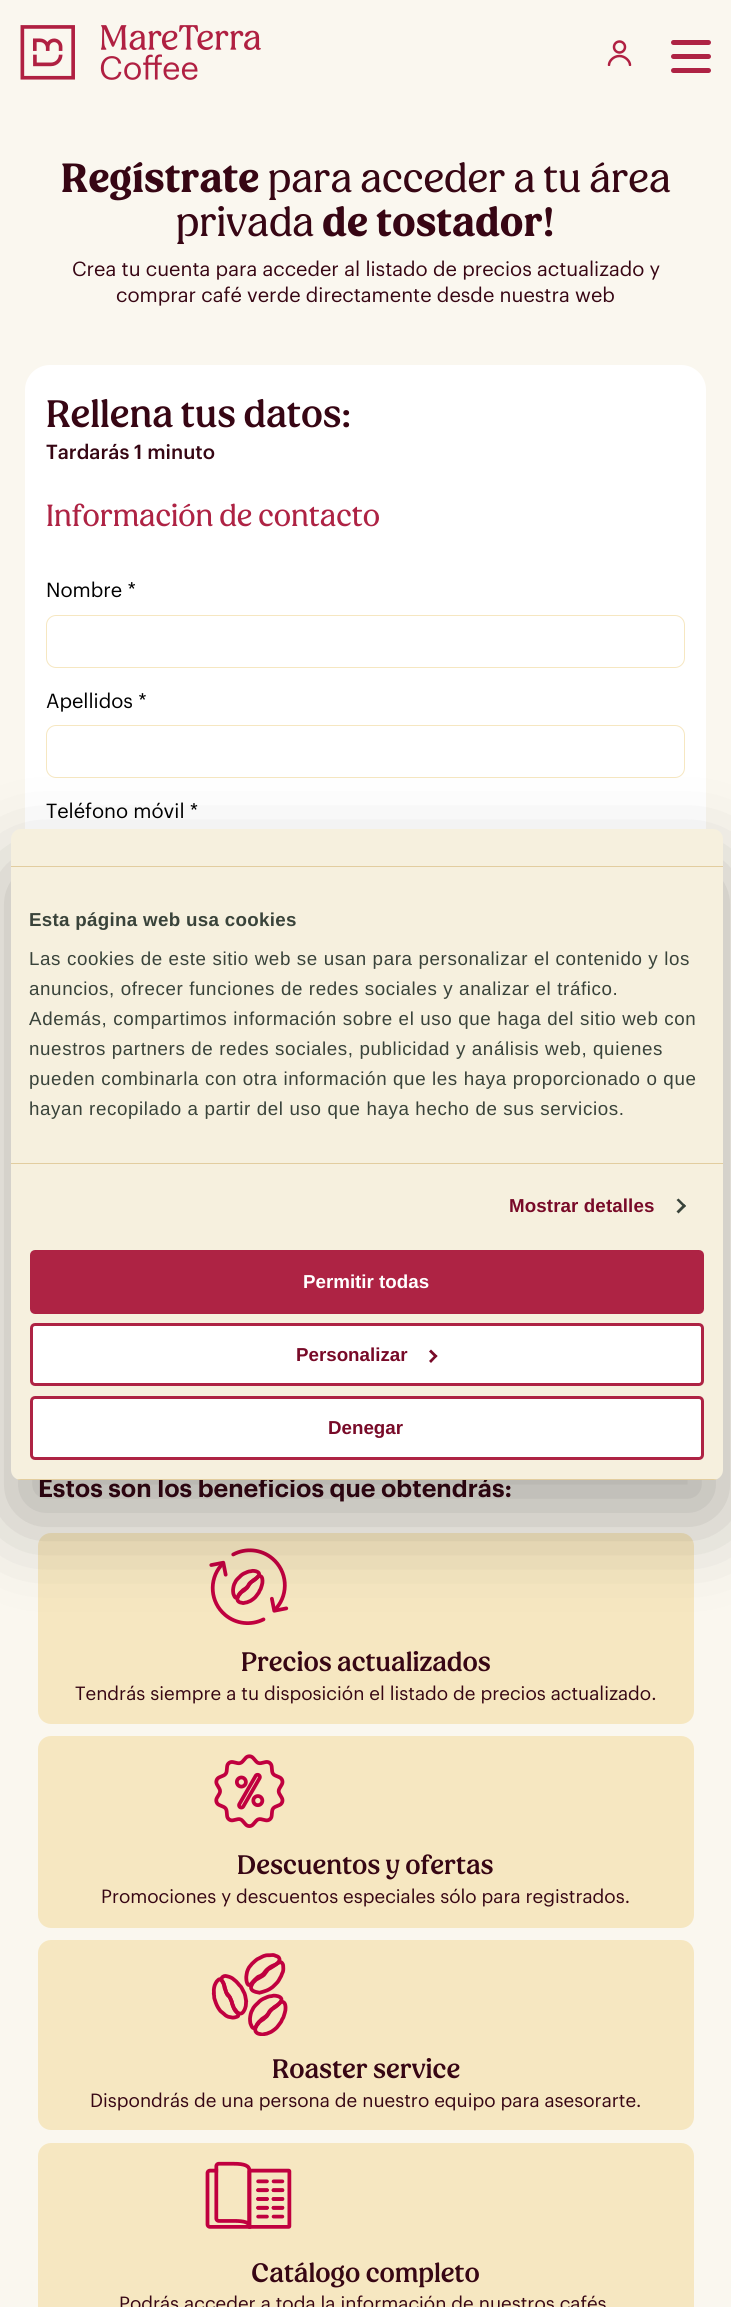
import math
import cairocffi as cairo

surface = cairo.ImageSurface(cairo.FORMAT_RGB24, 731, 2307)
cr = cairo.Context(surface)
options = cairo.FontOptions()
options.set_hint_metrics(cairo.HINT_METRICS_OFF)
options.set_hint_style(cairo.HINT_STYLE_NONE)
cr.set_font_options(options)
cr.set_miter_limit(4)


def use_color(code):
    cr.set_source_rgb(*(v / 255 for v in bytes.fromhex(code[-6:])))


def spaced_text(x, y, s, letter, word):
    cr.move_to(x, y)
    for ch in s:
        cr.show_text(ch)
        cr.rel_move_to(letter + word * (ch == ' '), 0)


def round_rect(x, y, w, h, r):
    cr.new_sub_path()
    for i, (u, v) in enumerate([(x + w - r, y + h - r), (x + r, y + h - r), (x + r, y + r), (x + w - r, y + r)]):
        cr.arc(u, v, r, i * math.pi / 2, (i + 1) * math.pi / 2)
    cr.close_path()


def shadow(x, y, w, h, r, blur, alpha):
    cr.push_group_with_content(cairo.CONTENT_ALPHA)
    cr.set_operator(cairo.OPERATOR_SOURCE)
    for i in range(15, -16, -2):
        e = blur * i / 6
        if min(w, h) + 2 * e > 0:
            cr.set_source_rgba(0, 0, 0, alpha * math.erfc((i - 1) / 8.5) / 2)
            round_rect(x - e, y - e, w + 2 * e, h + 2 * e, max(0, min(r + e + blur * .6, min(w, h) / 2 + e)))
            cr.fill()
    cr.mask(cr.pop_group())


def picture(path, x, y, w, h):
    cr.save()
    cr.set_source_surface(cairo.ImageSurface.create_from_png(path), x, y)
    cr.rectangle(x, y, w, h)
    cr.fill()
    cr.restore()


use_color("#faf7ef")
cr.paint()
picture("img1.png", 20, 25, 241, 55)
cr.arc(619.5, 47, 5.5, 0, 2 * math.pi)
use_color("#b02042")
cr.set_line_width(2.5)
cr.stroke()
cr.save()
cr.rectangle(606, 40, 27, 26)
cr.clip()
cr.new_path()
cr.move_to(630, 65)
cr.curve_to(630, 61, 625, 56, 619.5, 56)
cr.curve_to(613.5, 56, 609, 61, 609, 65)
cr.set_line_cap(cairo.LINE_CAP_ROUND)
cr.set_line_join(cairo.LINE_JOIN_ROUND)
cr.stroke()
cr.restore()
use_color("#ae2344")
round_rect(671, 40, 40, 5, 2.5)
cr.fill()
round_rect(671, 54, 40, 5, 2.5)
cr.fill()
round_rect(671, 68, 40, 5, 2.5)
cr.fill()
cr.select_font_face("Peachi", cairo.FONT_SLANT_NORMAL, cairo.FONT_WEIGHT_BOLD)
cr.set_font_size(40)
use_color("#370614")
cr.move_to(61, 192)
cr.show_text("Regístrate")
cr.select_font_face("Peachi")
cr.move_to(268, 192)
cr.show_text("para acceder a tu área")
cr.move_to(176, 236)
cr.show_text("privada")
cr.select_font_face("Peachi", cairo.FONT_SLANT_NORMAL, cairo.FONT_WEIGHT_BOLD)
cr.move_to(322, 236)
cr.show_text("de tostador!")
cr.select_font_face("Graphik")
cr.set_font_size(20)
cr.move_to(72, 276)
cr.show_text("Crea tu cuenta para acceder al listado de precios actualizado y")
cr.move_to(116, 302)
cr.show_text("comprar café verde directamente desde nuestra web")
use_color("#ffffff")
round_rect(25, 365, 681, 1070, 25)
cr.fill()
cr.select_font_face("Peachi Medium")
cr.set_font_size(37.5)
use_color("#370614")
cr.move_to(46, 427)
cr.show_text("Rellena tus datos:")
cr.select_font_face("Graphik Medium")
cr.set_font_size(20)
cr.move_to(46, 459)
cr.show_text("Tardarás 1 minuto")
cr.select_font_face("Peachi")
cr.set_font_size(30)
use_color("#ae2344")
cr.move_to(46, 526)
cr.show_text("Información de contacto")
cr.select_font_face("Graphik")
cr.set_font_size(20)
use_color("#000000")
cr.move_to(46, 597)
cr.show_text("Nombre *")
round_rect(46.5, 615.5, 638, 52, 9.5)
use_color("#f6e7c1")
cr.set_line_width(1)
cr.stroke()
use_color("#000000")
cr.move_to(46, 708)
cr.show_text("Apellidos *")
round_rect(46.5, 725.5, 638, 52, 9.5)
use_color("#f6e7c1")
cr.stroke()
use_color("#000000")
cr.move_to(46, 818)
cr.show_text("Teléfono móvil *")
cr.select_font_face("Graphik SemiBold")
cr.set_font_size(25)
use_color("#370614")
cr.move_to(38, 1497)
cr.show_text("Estos son los beneficios que obtendrás:")
use_color("#f6e7c1")
round_rect(38, 1533, 656, 191, 13)
cr.fill()
picture("img2.png", 209, 1548, 80, 77)
cr.select_font_face("Peachi Medium")
cr.set_font_size(26.25)
use_color("#370614")
cr.move_to(241, 1671)
cr.show_text("Precios actualizados")
cr.select_font_face("Graphik")
cr.set_font_size(18.75)
cr.move_to(75, 1700)
cr.show_text("Tendrás siempre a tu disposición el listado de precios actualizado.")
use_color("#f6e7c1")
round_rect(38, 1736, 656, 192, 13)
cr.fill()
picture("img3.png", 214, 1754, 71, 74)
cr.select_font_face("Peachi Medium")
cr.set_font_size(26.25)
use_color("#370614")
cr.move_to(237, 1874)
cr.show_text("Descuentos y ofertas")
cr.select_font_face("Graphik")
cr.set_font_size(18.75)
cr.move_to(101, 1903)
cr.show_text("Promociones y descuentos especiales sólo para registrados.")
use_color("#f6e7c1")
round_rect(38, 1940, 656, 190, 13)
cr.fill()
picture("img4.png", 211, 1953, 77, 83)
cr.select_font_face("Peachi Medium")
cr.set_font_size(26.25)
use_color("#370614")
cr.move_to(272, 2078)
cr.show_text("Roaster service")
cr.select_font_face("Graphik")
cr.set_font_size(18.75)
cr.move_to(90, 2107)
cr.show_text("Dispondrás de una persona de nuestro equipo para asesorarte.")
use_color("#f6e7c1")
round_rect(38, 2143, 656, 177, 13)
cr.fill()
picture("img5.png", 205, 2161, 87, 68)
cr.select_font_face("Peachi Medium")
cr.set_font_size(26.25)
use_color("#370614")
cr.move_to(251, 2282)
cr.show_text("Catálogo completo")
cr.select_font_face("Graphik")
cr.set_font_size(18.75)
cr.move_to(119, 2310)
cr.show_text("Podrás acceder a toda la información de nuestros cafés")
use_color("#000000")
shadow(11, 869, 712, 651, 10, 42.5, 0.3)
use_color("#f6f0de")
round_rect(11, 829, 712, 651, 10)
cr.fill()
use_color("#e2cd9f")
cr.rectangle(11, 866, 712, 1)
cr.fill()
cr.rectangle(11, 1163, 712, 1)
cr.fill()
cr.select_font_face("Liberation Sans", cairo.FONT_SLANT_NORMAL, cairo.FONT_WEIGHT_BOLD)
use_color("#39433a")
spaced_text(29, 926, "Esta página web usa cookies", 0.3, 0)
cr.select_font_face("Liberation Sans")
spaced_text(29, 965, "Las cookies de este sitio web se usan para personalizar el contenido y los", 0.62, 0)
spaced_text(29, 995, "anuncios, ofrecer funciones de redes sociales y analizar el tráfico.", 0.62, 0)
spaced_text(29, 1025, "Además, compartimos información sobre el uso que haga del sitio web con", 0.62, 0)
spaced_text(29, 1055, "nuestros partners de redes sociales, publicidad y análisis web, quienes", 0.62, 0)
spaced_text(29, 1085, "pueden combinarla con otra información que les haya proporcionado o que", 0.62, 0)
spaced_text(29, 1115, "hayan recopilado a partir del uso que haya hecho de sus servicios.", 0.62, 0)
cr.select_font_face("Liberation Sans", cairo.FONT_SLANT_NORMAL, cairo.FONT_WEIGHT_BOLD)
use_color("#780a28")
spaced_text(509, 1212, "Mostrar detalles", 0.1, 0)
use_color("#39433a")
cr.new_path()
cr.move_to(678.5, 1198.5)
cr.line_to(686, 1206)
cr.line_to(684, 1207.5)
cr.line_to(676.5, 1200)
cr.close_path()
cr.fill()
cr.new_path()
cr.move_to(684, 1204)
cr.line_to(686, 1206)
cr.line_to(678.5, 1213.5)
cr.line_to(676.5, 1211.5)
cr.close_path()
cr.fill()
cr.save()
round_rect(11, 829, 712, 651, 10)
cr.clip()
use_color("#e2cd9f")
cr.rectangle(11, 1479, 712, 1)
cr.fill()
cr.restore()
use_color("#ae2344")
round_rect(31.5, 1251.5, 671, 61, 3.5)
cr.fill_preserve()
cr.set_line_width(3)
cr.stroke()
use_color("#ffffff")
cr.move_to(303, 1288)
cr.show_text("Permitir todas")
round_rect(31.5, 1324.5, 671, 60, 3.5)
cr.fill_preserve()
use_color("#ae2344")
cr.stroke()
use_color("#780a28")
cr.move_to(296, 1361)
cr.show_text("Personalizar")
cr.new_path()
cr.move_to(431, 1349.5)
cr.line_to(437.5, 1356)
cr.line_to(435.5, 1358)
cr.line_to(429, 1351.5)
cr.close_path()
cr.fill()
cr.new_path()
cr.move_to(435.5, 1354.5)
cr.line_to(437.5, 1356)
cr.line_to(431, 1363)
cr.line_to(429, 1361)
cr.close_path()
cr.fill()
use_color("#ffffff")
round_rect(31.5, 1397.5, 671, 61, 3.5)
cr.fill_preserve()
use_color("#ae2344")
cr.stroke()
use_color("#780a28")
cr.move_to(328, 1434)
cr.show_text("Denegar")
surface.write_to_png("result.png")
